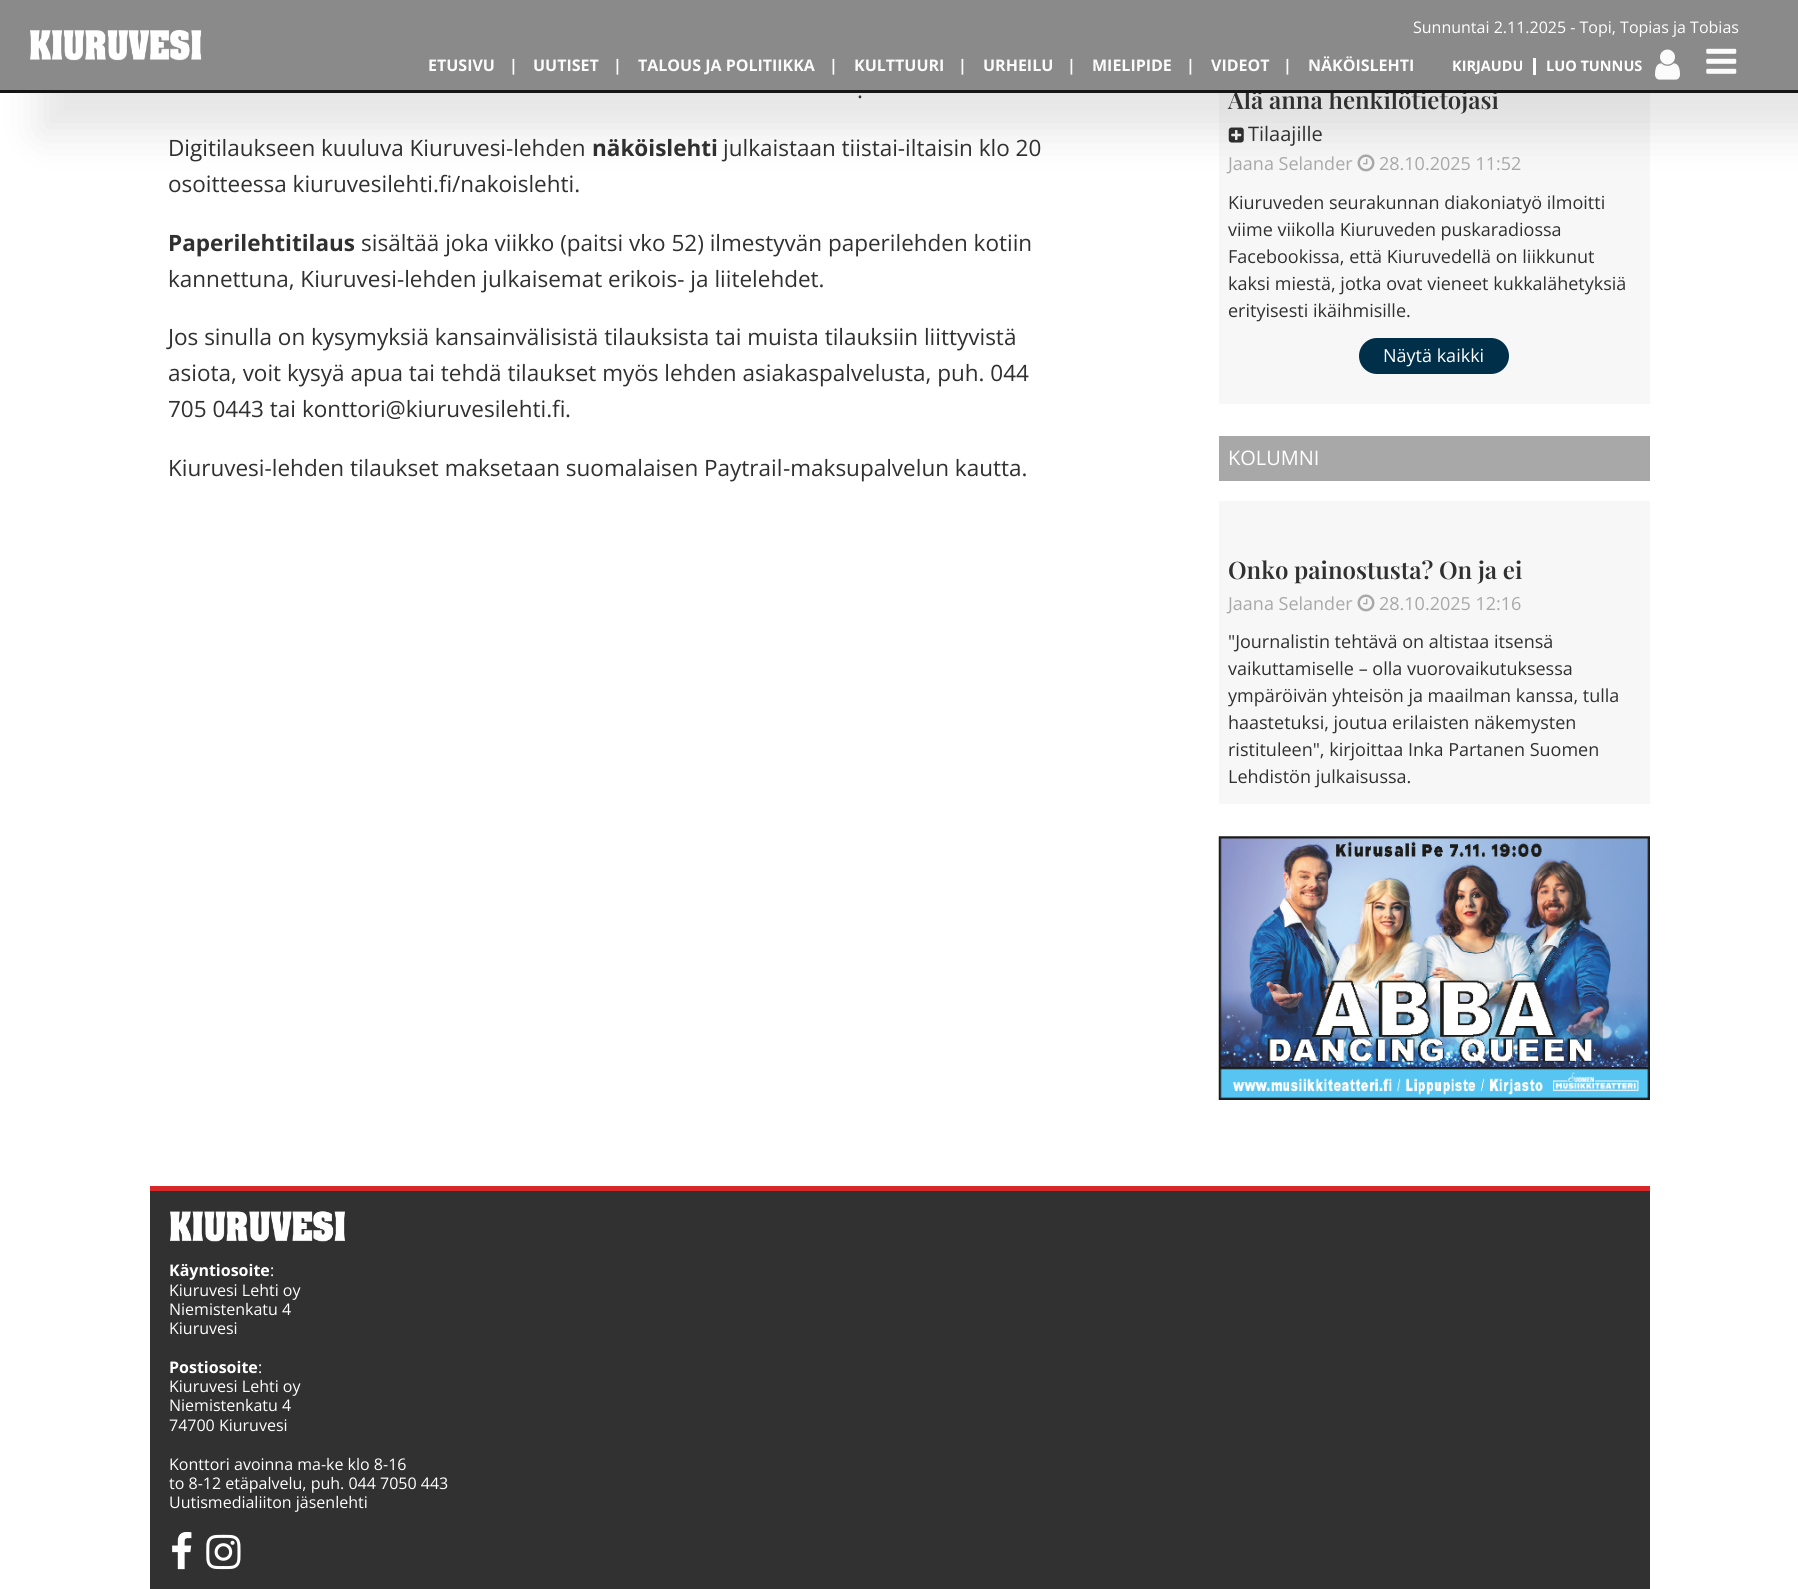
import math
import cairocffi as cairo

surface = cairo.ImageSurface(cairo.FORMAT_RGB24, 1798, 1589)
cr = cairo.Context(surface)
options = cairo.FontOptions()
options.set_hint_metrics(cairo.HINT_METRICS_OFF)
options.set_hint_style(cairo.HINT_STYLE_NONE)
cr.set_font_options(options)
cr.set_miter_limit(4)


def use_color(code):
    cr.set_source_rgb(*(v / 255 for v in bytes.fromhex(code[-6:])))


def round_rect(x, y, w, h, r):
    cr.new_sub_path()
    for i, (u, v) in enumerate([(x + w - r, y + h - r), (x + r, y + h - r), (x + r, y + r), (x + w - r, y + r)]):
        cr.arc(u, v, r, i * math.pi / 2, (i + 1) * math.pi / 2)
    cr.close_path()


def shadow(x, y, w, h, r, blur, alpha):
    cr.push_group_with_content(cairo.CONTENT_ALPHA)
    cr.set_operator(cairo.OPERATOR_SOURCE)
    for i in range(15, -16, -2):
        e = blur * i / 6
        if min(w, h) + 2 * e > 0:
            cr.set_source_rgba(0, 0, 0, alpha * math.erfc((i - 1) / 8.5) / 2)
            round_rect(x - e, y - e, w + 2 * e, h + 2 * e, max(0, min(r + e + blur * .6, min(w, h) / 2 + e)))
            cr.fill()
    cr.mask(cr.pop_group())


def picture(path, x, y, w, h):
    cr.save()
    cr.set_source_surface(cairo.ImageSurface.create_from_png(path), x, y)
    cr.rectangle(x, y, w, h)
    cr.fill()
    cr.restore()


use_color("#ffffff")
cr.paint()
use_color("#f7f7f7")
cr.rectangle(1219, 93, 431, 311)
cr.fill()
picture("img4.png", 1228, 127, 16, 16)
picture("img5.png", 1357, 154, 18, 18)
use_color("#000000")
shadow(40, 40, 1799, 93, 0, 20, 0.1)
cr.select_font_face("Playfair Display SemiBold")
cr.set_font_size(24)
use_color("#303030")
cr.move_to(1228, 109)
cr.show_text("Älä anna henkilötietojasi")
use_color("#151515")
cr.rectangle(0, 0, 1798, 93)
cr.fill()
picture("img1.png", 30, 30, 172, 31)
cr.select_font_face("Open Sans")
cr.set_font_size(16)
use_color("#ffffff")
cr.move_to(1413, 33)
cr.show_text("Sunnuntai 2.11.2025 - Topi, Topias ja Tobias")
cr.select_font_face("Open Sans", cairo.FONT_SLANT_NORMAL, cairo.FONT_WEIGHT_BOLD)
use_color("#f7f7f7")
cr.move_to(428, 71)
cr.show_text("ETUSIVU")
cr.move_to(509, 71)
cr.show_text("|")
cr.move_to(533, 71)
cr.show_text("UUTISET")
cr.move_to(613, 71)
cr.show_text("|")
cr.move_to(638, 71)
cr.show_text("TALOUS JA POLITIIKKA")
cr.move_to(829, 71)
cr.show_text("|")
cr.move_to(854, 71)
cr.show_text("KULTTUURI")
cr.move_to(958, 71)
cr.show_text("|")
cr.move_to(983, 71)
cr.show_text("URHEILU")
cr.move_to(1067, 71)
cr.show_text("|")
cr.move_to(1092, 71)
cr.show_text("MIELIPIDE")
cr.move_to(1186, 71)
cr.show_text("|")
cr.move_to(1211, 71)
cr.show_text("VIDEOT")
cr.move_to(1283, 71)
cr.show_text("|")
cr.move_to(1308, 71)
cr.show_text("NÄKÖISLEHTI")
use_color("#ffffff")
cr.rectangle(1533, 58, 3, 17)
cr.fill()
cr.set_font_size(14.5)
cr.move_to(1452, 71)
cr.show_text("KIRJAUDU")
cr.move_to(1546, 71)
cr.show_text("LUO TUNNUS")
picture("img2.png", 1655, 49, 25, 31)
picture("img3.png", 1706, 48, 31, 26)
cr.set_source_rgba(1, 1, 1, 0.5)
cr.rectangle(0, 0, 1798, 90)
cr.fill()
cr.select_font_face("Open Sans")
cr.set_font_size(22.5)
use_color("#303030")
cr.move_to(857, 98)
cr.show_text(".")
cr.move_to(168, 156)
cr.show_text("Digitilaukseen kuuluva Kiuruvesi-lehden")
cr.select_font_face("Open Sans", cairo.FONT_SLANT_NORMAL, cairo.FONT_WEIGHT_BOLD)
cr.move_to(592, 156)
cr.show_text("näköislehti")
cr.select_font_face("Open Sans")
cr.move_to(723, 156)
cr.show_text("julkaistaan tiistai-iltaisin klo 20")
cr.move_to(168, 192)
cr.show_text("osoitteessa kiuruvesilehti.fi/nakoislehti.")
cr.select_font_face("Open Sans", cairo.FONT_SLANT_NORMAL, cairo.FONT_WEIGHT_BOLD)
cr.move_to(168, 251)
cr.show_text("Paperilehtitilaus")
cr.select_font_face("Open Sans")
cr.move_to(361, 251)
cr.show_text("sisältää joka viikko (paitsi vko 52) ilmestyvän paperilehden kotiin")
cr.move_to(168, 287)
cr.show_text("kannettuna, Kiuruvesi-lehden julkaisemat erikois- ja liitelehdet.")
cr.move_to(168, 345)
cr.show_text("Jos sinulla on kysymyksiä kansainvälisistä tilauksista tai muista tilauksiin liittyvistä")
cr.move_to(168, 381)
cr.show_text("asiota, voit kysyä apua tai tehdä tilaukset myös lehden asiakaspalvelusta, puh. 044")
cr.move_to(168, 417)
cr.show_text("705 0443 tai")
cr.move_to(302, 417)
cr.show_text("konttori@kiuruvesilehti.fi")
cr.move_to(565, 417)
cr.show_text(".")
cr.move_to(168, 476)
cr.show_text("Kiuruvesi-lehden tilaukset maksetaan suomalaisen")
cr.move_to(704, 476)
cr.show_text("Paytrail")
cr.move_to(783, 476)
cr.show_text("-maksupalvelun kautta.")
cr.set_font_size(20)
cr.move_to(1248, 141)
cr.show_text("Tilaajille")
cr.set_font_size(18)
use_color("#a8a8a8")
cr.move_to(1228, 170)
cr.show_text("Jaana Selander")
cr.move_to(1379, 170)
cr.show_text("28.10.2025 11:52")
use_color("#303030")
cr.move_to(1228, 209)
cr.show_text("Kiuruveden seurakunnan diakoniatyö ilmoitti")
cr.move_to(1228, 236)
cr.show_text("viime viikolla Kiuruveden puskaradiossa")
cr.move_to(1228, 263)
cr.show_text("Facebookissa, että Kiuruvedellä on liikkunut")
cr.move_to(1228, 290)
cr.show_text("kaksi miestä, jotka ovat vieneet kukkalähetyksiä")
cr.move_to(1228, 317)
cr.show_text("erityisesti ikäihmisille.")
use_color("#003049")
round_rect(1359, 338, 150, 36, 18)
cr.fill()
use_color("#ffffff")
cr.move_to(1383, 362)
cr.show_text("Näytä kaikki")
use_color("#a8a8a8")
cr.rectangle(1219, 436, 431, 45)
cr.fill()
cr.set_font_size(20)
use_color("#ffffff")
cr.move_to(1228, 465)
cr.show_text("KOLUMNI")
use_color("#f7f7f7")
cr.rectangle(1219, 501, 431, 303)
cr.fill()
cr.select_font_face("Playfair Display SemiBold")
cr.set_font_size(24)
use_color("#303030")
cr.move_to(1228, 579)
cr.show_text("Onko painostusta? On ja ei")
cr.select_font_face("Open Sans")
cr.set_font_size(18)
use_color("#a8a8a8")
cr.move_to(1228, 610)
cr.show_text("Jaana Selander")
picture("img5.png", 1357, 594, 18, 18)
cr.move_to(1379, 610)
cr.show_text("28.10.2025 12:16")
use_color("#303030")
cr.move_to(1228, 648)
cr.show_text("\"Journalistin tehtävä on altistaa itsensä")
cr.move_to(1228, 675)
cr.show_text("vaikuttamiselle – olla vuorovaikutuksessa")
cr.move_to(1228, 702)
cr.show_text("ympäröivän yhteisön ja maailman kanssa, tulla")
cr.move_to(1228, 729)
cr.show_text("haastetuksi, joutua erilaisten näkemysten")
cr.move_to(1228, 756)
cr.show_text("ristituleen\", kirjoittaa Inka Partanen Suomen")
cr.move_to(1228, 783)
cr.show_text("Lehdistön julkaisussa.")
picture("img6.png", 1218, 836, 432, 264)
use_color("#313131")
cr.rectangle(150, 1191, 1500, 398)
cr.fill()
use_color("#d62828")
cr.rectangle(150, 1186, 1500, 5)
cr.fill()
picture("img7.png", 170, 1211, 175, 31)
cr.select_font_face("Open Sans", cairo.FONT_SLANT_NORMAL, cairo.FONT_WEIGHT_BOLD)
cr.set_font_size(16)
use_color("#ffffff")
cr.move_to(169, 1276)
cr.show_text("Käyntiosoite")
cr.select_font_face("Open Sans")
cr.move_to(270, 1276)
cr.show_text(":")
cr.move_to(169, 1296)
cr.show_text("Kiuruvesi Lehti oy")
cr.move_to(169, 1315)
cr.show_text("Niemistenkatu 4")
cr.move_to(169, 1334)
cr.show_text("Kiuruvesi")
cr.select_font_face("Open Sans", cairo.FONT_SLANT_NORMAL, cairo.FONT_WEIGHT_BOLD)
cr.move_to(169, 1373)
cr.show_text("Postiosoite")
cr.select_font_face("Open Sans")
cr.move_to(258, 1373)
cr.show_text(":")
cr.move_to(169, 1392)
cr.show_text("Kiuruvesi Lehti oy")
cr.move_to(169, 1411)
cr.show_text("Niemistenkatu 4")
cr.move_to(169, 1431)
cr.show_text("74700 Kiuruvesi")
cr.move_to(169, 1470)
cr.show_text("Konttori avoinna ma-ke klo 8-16")
cr.move_to(169, 1489)
cr.show_text("to 8-12 etäpalvelu, puh. 044 7050 443")
cr.move_to(169, 1508)
cr.show_text("Uutismedialiiton jäsenlehti")
picture("img8.png", 172, 1532, 20, 38)
picture("img9.png", 206, 1534, 35, 36)
surface.write_to_png("result.png")
